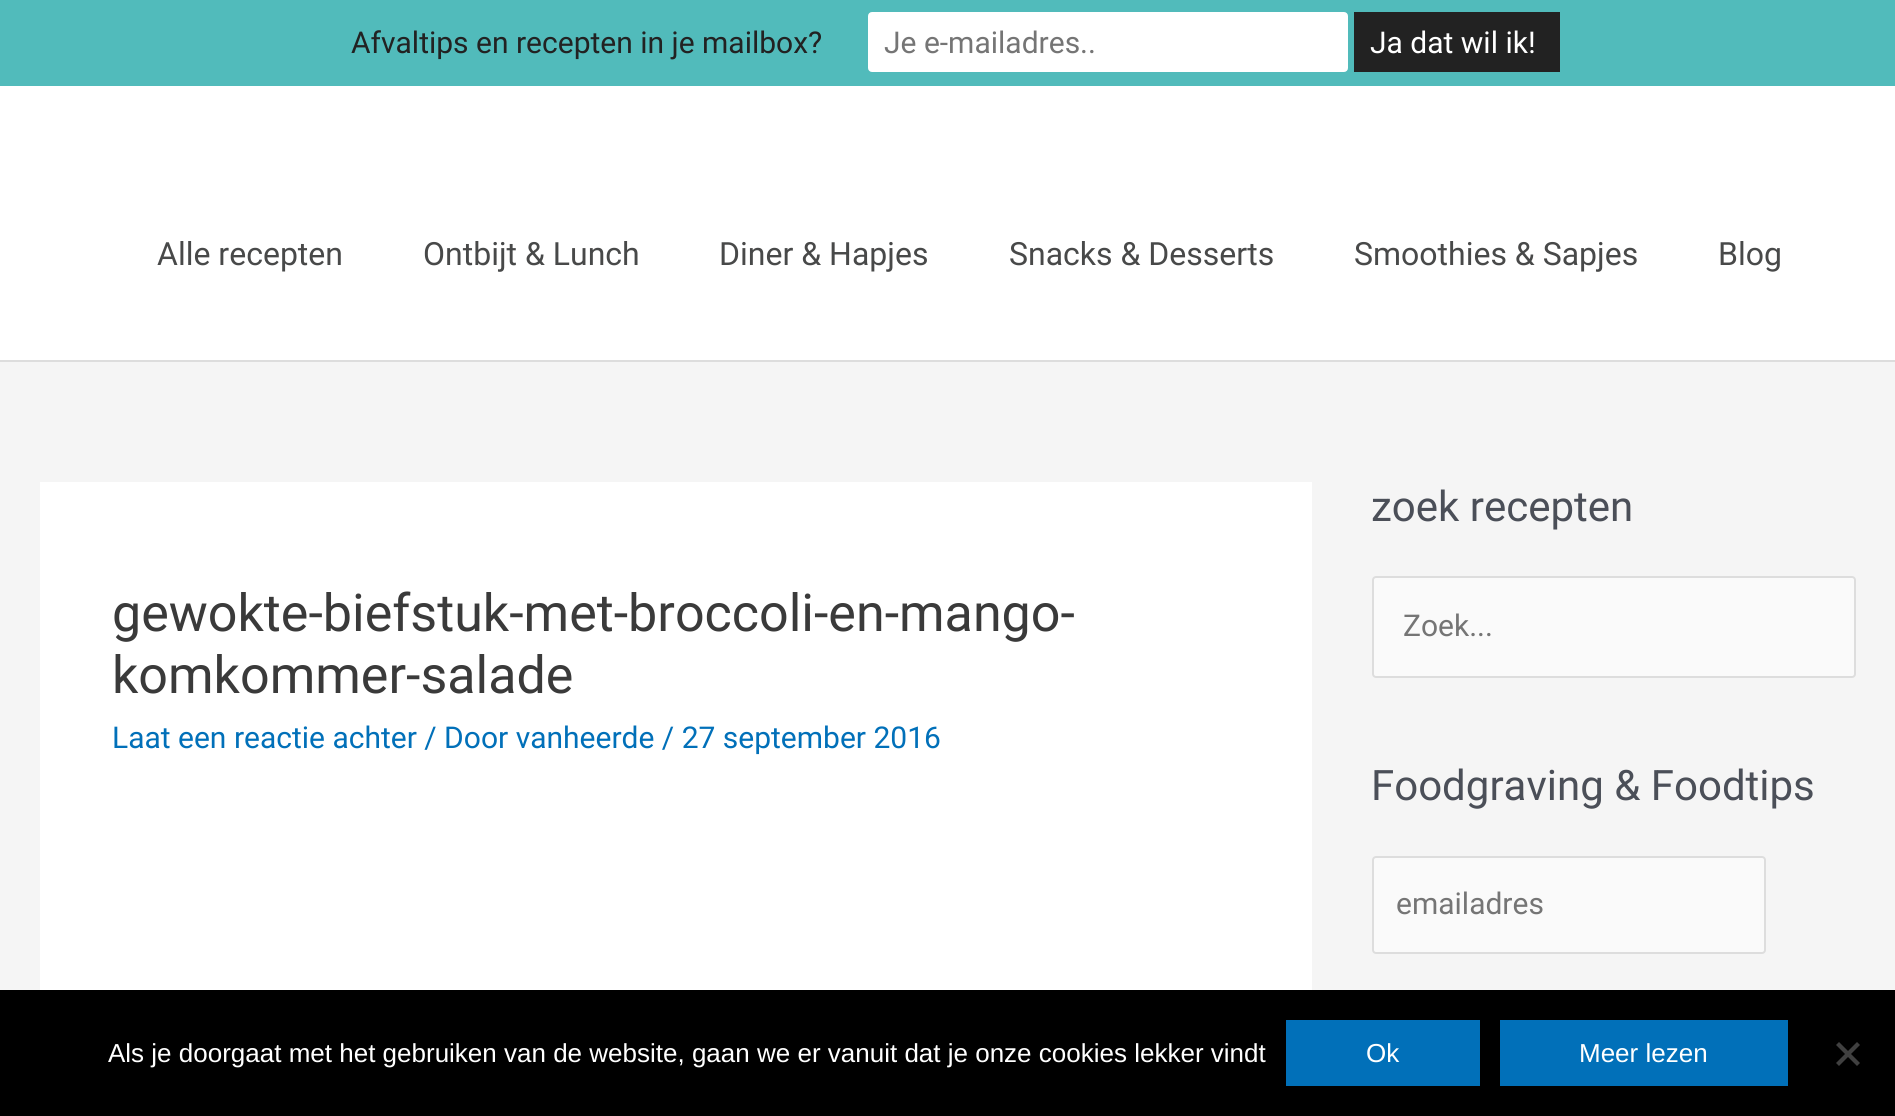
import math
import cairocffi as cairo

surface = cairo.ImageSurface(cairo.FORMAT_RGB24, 1895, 1116)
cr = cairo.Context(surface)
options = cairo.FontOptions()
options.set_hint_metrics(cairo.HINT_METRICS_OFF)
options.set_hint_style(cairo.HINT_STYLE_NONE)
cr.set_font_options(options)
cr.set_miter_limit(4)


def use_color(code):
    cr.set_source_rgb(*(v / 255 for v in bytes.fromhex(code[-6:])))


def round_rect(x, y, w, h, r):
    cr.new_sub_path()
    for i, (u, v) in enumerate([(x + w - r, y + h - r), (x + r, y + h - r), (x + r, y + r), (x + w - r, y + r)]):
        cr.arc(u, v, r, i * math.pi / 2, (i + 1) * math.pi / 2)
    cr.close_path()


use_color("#f5f5f5")
cr.paint()
use_color("#51bbbb")
cr.rectangle(0, 0, 1895, 86)
cr.fill()
cr.select_font_face("Roboto")
cr.set_font_size(30)
use_color("#222222")
cr.move_to(351, 53)
cr.show_text("Afvaltips en recepten in je mailbox?")
use_color("#ffffff")
round_rect(869, 13, 478, 58, 3)
cr.fill_preserve()
cr.stroke()
use_color("#757575")
cr.move_to(884, 53)
cr.show_text("Je e-mailadres..")
use_color("#222222")
cr.rectangle(1354, 12, 206, 60)
cr.fill()
use_color("#ffffff")
cr.move_to(1370, 53)
cr.show_text("Ja dat wil ik!")
cr.rectangle(0, 86, 1895, 274)
cr.fill()
use_color("#dddddd")
cr.rectangle(0, 360, 1895, 2)
cr.fill()
cr.set_font_size(32)
use_color("#484949")
cr.move_to(157, 265)
cr.show_text("Alle recepten")
cr.move_to(423, 265)
cr.show_text("Ontbijt & Lunch")
cr.move_to(719, 265)
cr.show_text("Diner & Hapjes")
cr.move_to(1009, 265)
cr.show_text("Snacks & Desserts")
cr.move_to(1354, 265)
cr.show_text("Smoothies & Sapjes")
cr.move_to(1718, 265)
cr.show_text("Blog")
use_color("#ffffff")
cr.rectangle(40, 482, 1272, 508)
cr.fill()
cr.set_font_size(52)
use_color("#3a3a3a")
cr.move_to(112, 631)
cr.show_text("gewokte-biefstuk-met-broccoli-en-mango-")
cr.move_to(112, 693)
cr.show_text("komkommer-salade")
cr.set_font_size(30)
use_color("#0170b9")
cr.move_to(112, 748)
cr.show_text("Laat een reactie achter / Door vanheerde / 27 september 2016")
cr.set_font_size(42)
use_color("#4b4f58")
cr.move_to(1371, 521)
cr.show_text("zoek recepten")
use_color("#fafafa")
round_rect(1373, 577, 482, 100, 3)
cr.fill_preserve()
use_color("#dddddd")
cr.stroke()
cr.set_font_size(30)
use_color("#757575")
cr.move_to(1403, 636)
cr.show_text("Zoek...")
cr.set_font_size(42)
use_color("#4b4f58")
cr.move_to(1371, 800)
cr.show_text("Foodgraving & Foodtips")
use_color("#fafafa")
round_rect(1373, 857, 392, 96, 3)
cr.fill_preserve()
use_color("#dddddd")
cr.stroke()
cr.set_font_size(30)
use_color("#757575")
cr.move_to(1396, 914)
cr.show_text("emailadres")
use_color("#000000")
cr.rectangle(0, 990, 1895, 126)
cr.fill()
cr.select_font_face("Liberation Sans")
cr.set_font_size(26)
use_color("#ffffff")
cr.move_to(108, 1062)
cr.show_text("Als je doorgaat met het gebruiken van de website, gaan we er vanuit dat je onze cookies lekker vindt")
use_color("#0170b9")
cr.rectangle(1286, 1020, 194, 66)
cr.fill()
use_color("#ffffff")
cr.move_to(1366, 1062)
cr.show_text("Ok")
use_color("#0170b9")
cr.rectangle(1500, 1020, 288, 66)
cr.fill()
use_color("#ffffff")
cr.move_to(1579, 1062)
cr.show_text("Meer lezen")
use_color("#404040")
cr.new_path()
cr.move_to(1857, 1042)
cr.line_to(1860, 1045)
cr.line_to(1839, 1066)
cr.line_to(1836, 1063)
cr.close_path()
cr.fill()
cr.new_path()
cr.move_to(1836, 1045)
cr.line_to(1839, 1042)
cr.line_to(1860, 1063)
cr.line_to(1857, 1066)
cr.close_path()
cr.fill()
surface.write_to_png("result.png")
